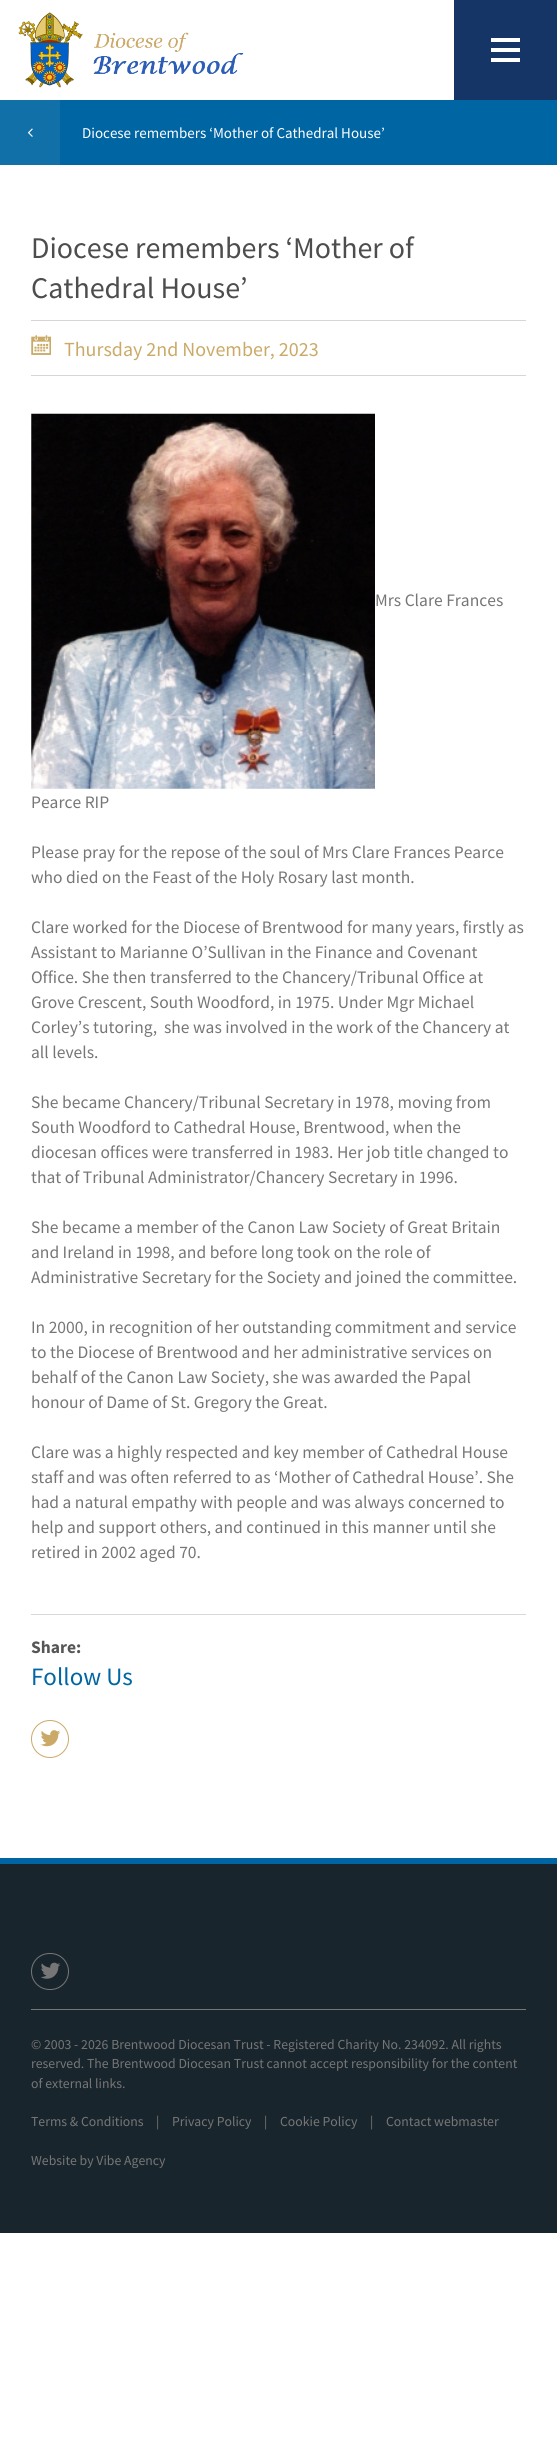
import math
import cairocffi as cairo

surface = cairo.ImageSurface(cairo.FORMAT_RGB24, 557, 2458)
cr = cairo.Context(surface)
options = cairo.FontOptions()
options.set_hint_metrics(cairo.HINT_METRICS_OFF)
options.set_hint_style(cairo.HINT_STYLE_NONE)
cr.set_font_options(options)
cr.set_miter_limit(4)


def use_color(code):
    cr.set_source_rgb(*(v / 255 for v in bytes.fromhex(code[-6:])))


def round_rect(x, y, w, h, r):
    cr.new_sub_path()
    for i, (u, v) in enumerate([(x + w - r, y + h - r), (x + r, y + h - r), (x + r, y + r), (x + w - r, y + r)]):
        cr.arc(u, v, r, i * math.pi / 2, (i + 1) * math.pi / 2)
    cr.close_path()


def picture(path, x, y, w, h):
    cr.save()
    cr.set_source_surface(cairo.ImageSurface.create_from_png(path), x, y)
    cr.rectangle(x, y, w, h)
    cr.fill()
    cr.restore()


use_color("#ffffff")
cr.paint()
picture("img1.png", 18, 12, 226, 76)
use_color("#143565")
cr.rectangle(454, 0, 103, 100)
cr.fill()
use_color("#ffffff")
cr.rectangle(491, 38, 29, 4)
cr.fill()
cr.rectangle(491, 48, 29, 4)
cr.fill()
cr.rectangle(491, 58, 29, 4)
cr.fill()
use_color("#0065a3")
cr.rectangle(60, 100, 497, 65)
cr.fill()
use_color("#1270a9")
cr.rectangle(0, 100, 60, 65)
cr.fill()
picture("img2.png", 27, 128, 6, 9)
cr.select_font_face("Source Sans Pro")
cr.set_font_size(15)
use_color("#ffffff")
cr.move_to(82, 138)
cr.show_text("Diocese remembers ‘Mother of Cathedral House’")
use_color("#d6d6d6")
cr.rectangle(31, 320, 495, 1)
cr.fill()
cr.set_font_size(30)
use_color("#4d4d4d")
cr.move_to(31, 258)
cr.show_text("Diocese remembers ‘Mother of")
cr.move_to(31, 298)
cr.show_text("Cathedral House’")
use_color("#d6d6d6")
cr.rectangle(31, 375, 495, 1)
cr.fill()
picture("img3.png", 31, 335, 20, 20)
cr.set_font_size(20)
use_color("#cbaa68")
cr.move_to(64, 356)
cr.show_text("Thursday 2nd November, 2023")
picture("img4.png", 31, 413, 344, 376)
cr.set_font_size(17.5)
use_color("#767676")
cr.move_to(375, 606)
cr.show_text("Mrs Clare Frances")
cr.move_to(31, 808)
cr.show_text("Pearce RIP")
cr.move_to(31, 858)
cr.show_text("Please pray for the repose of the soul of Mrs Clare Frances Pearce")
cr.move_to(31, 883)
cr.show_text("who died on the Feast of the Holy Rosary last month.")
cr.move_to(31, 933)
cr.show_text("Clare worked for the Diocese of Brentwood for many years, firstly as")
cr.move_to(31, 958)
cr.show_text("Assistant to Marianne O’Sullivan in the Finance and Covenant")
cr.move_to(31, 983)
cr.show_text("Office. She then transferred to the Chancery/Tribunal Office at")
cr.move_to(31, 1008)
cr.show_text("Grove Crescent, South Woodford, in 1975. Under Mgr Michael")
cr.move_to(31, 1033)
cr.show_text("Corley’s tutoring,  she was involved in the work of the Chancery at")
cr.move_to(31, 1058)
cr.show_text("all levels.")
cr.move_to(31, 1108)
cr.show_text("She became Chancery/Tribunal Secretary in 1978, moving from")
cr.move_to(31, 1133)
cr.show_text("South Woodford to Cathedral House, Brentwood, when the")
cr.move_to(31, 1158)
cr.show_text("diocesan offices were transferred in 1983. Her job title changed to")
cr.move_to(31, 1183)
cr.show_text("that of Tribunal Administrator/Chancery Secretary in 1996.")
cr.move_to(31, 1233)
cr.show_text("She became a member of the Canon Law Society of Great Britain")
cr.move_to(31, 1258)
cr.show_text("and Ireland in 1998, and before long took on the role of")
cr.move_to(31, 1283)
cr.show_text("Administrative Secretary for the Society and joined the committee.")
cr.move_to(31, 1333)
cr.show_text("In 2000, in recognition of her outstanding commitment and service")
cr.move_to(31, 1358)
cr.show_text("to the Diocese of Brentwood and her administrative services on")
cr.move_to(31, 1383)
cr.show_text("behalf of the Canon Law Society, she was awarded the Papal")
cr.move_to(31, 1408)
cr.show_text("honour of Dame of St. Gregory the Great.")
cr.move_to(31, 1458)
cr.show_text("Clare was a highly respected and key member of Cathedral House")
cr.move_to(31, 1483)
cr.show_text("staff and was often referred to as ‘Mother of Cathedral House’. She")
cr.move_to(31, 1508)
cr.show_text("had a natural empathy with people and was always concerned to")
cr.move_to(31, 1533)
cr.show_text("help and support others, and continued in this manner until she")
cr.move_to(31, 1558)
cr.show_text("retired in 2002 aged 70.")
use_color("#d8d8d8")
cr.rectangle(31, 1614, 495, 1)
cr.fill()
cr.select_font_face("Source Sans Pro", cairo.FONT_SLANT_NORMAL, cairo.FONT_WEIGHT_BOLD)
use_color("#565656")
cr.move_to(31, 1653)
cr.show_text("Share:")
cr.select_font_face("Source Sans Pro")
cr.set_font_size(25)
use_color("#0065a3")
cr.move_to(31, 1685)
cr.show_text("Follow Us")
cr.new_path()
cr.arc(50, 1739, 18.5, 0, 2 * math.pi)
use_color("#cbaa68")
cr.set_line_width(1)
cr.stroke()
picture("img5.png", 40, 1730, 21, 17)
use_color("#19252c")
cr.rectangle(0, 1864, 557, 369)
cr.fill()
use_color("#0065a3")
cr.rectangle(0, 1858, 557, 6)
cr.fill()
round_rect(31.5, 1953.5, 37, 36, 18)
use_color("#767676")
cr.stroke()
picture("img6.png", 41, 1962, 20, 17)
cr.rectangle(31, 2009, 495, 1)
cr.fill()
cr.set_font_size(13.75)
cr.move_to(31, 2049)
cr.show_text("© 2003 - 2026 Brentwood Diocesan Trust - Registered Charity No. 234092. All rights")
cr.move_to(31, 2068)
cr.show_text("reserved. The Brentwood Diocesan Trust cannot accept responsibility for the content")
cr.move_to(31, 2088)
cr.show_text("of external links.")
cr.move_to(31, 2126)
cr.show_text("Terms & Conditions")
cr.move_to(156, 2126)
cr.show_text("|")
cr.move_to(172, 2126)
cr.show_text("Privacy Policy")
cr.move_to(264, 2126)
cr.show_text("|")
cr.move_to(280, 2126)
cr.show_text("Cookie Policy")
cr.move_to(370, 2126)
cr.show_text("|")
cr.move_to(386, 2126)
cr.show_text("Contact webmaster")
cr.move_to(31, 2165)
cr.show_text("Website by Vibe Agency")
surface.write_to_png("result.png")
